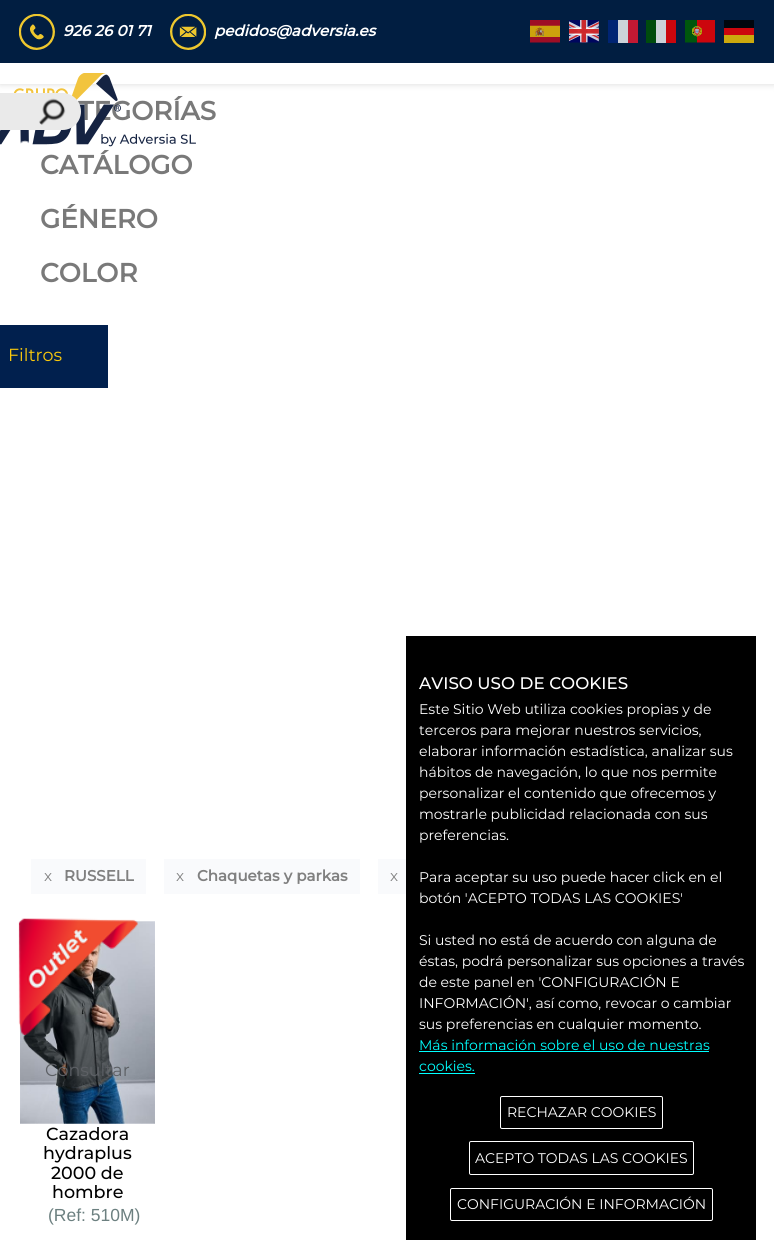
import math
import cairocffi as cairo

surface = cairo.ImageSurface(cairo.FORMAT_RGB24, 774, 1258)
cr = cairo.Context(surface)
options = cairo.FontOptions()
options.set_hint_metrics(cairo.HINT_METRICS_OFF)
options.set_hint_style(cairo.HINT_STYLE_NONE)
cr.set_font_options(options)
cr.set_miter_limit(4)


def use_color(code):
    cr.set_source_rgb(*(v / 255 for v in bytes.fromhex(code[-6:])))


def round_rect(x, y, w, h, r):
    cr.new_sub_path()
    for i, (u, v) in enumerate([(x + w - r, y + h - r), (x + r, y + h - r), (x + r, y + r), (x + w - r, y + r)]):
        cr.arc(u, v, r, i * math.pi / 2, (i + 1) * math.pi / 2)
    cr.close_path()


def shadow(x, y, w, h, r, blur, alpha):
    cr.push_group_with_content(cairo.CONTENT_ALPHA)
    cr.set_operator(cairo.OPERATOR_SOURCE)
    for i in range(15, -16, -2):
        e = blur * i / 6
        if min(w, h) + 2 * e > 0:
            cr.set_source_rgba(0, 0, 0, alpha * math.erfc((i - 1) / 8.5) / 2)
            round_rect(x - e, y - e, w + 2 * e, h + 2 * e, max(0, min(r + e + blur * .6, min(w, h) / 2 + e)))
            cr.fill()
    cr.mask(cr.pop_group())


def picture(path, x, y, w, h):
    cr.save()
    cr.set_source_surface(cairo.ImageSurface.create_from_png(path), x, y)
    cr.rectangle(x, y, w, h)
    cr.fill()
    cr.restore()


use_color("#ffffff")
cr.paint()
use_color("#000000")
cr.rectangle(406, 636, 350, 604)
cr.fill()
use_color("#bebebe")
shadow(0, 1, 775, 84, 0, 3, 0.46)
use_color("#ffffff")
cr.rectangle(0, 63, 774, 21)
cr.fill()
use_color("#011e41")
cr.rectangle(0, 0, 774, 63)
cr.fill()
picture("img1.png", 19, 14, 36, 36)
cr.select_font_face("Montserrat", cairo.FONT_SLANT_ITALIC, cairo.FONT_WEIGHT_BOLD)
cr.set_font_size(15.1)
use_color("#ffffff")
cr.move_to(63, 36)
cr.show_text("926 26 01 71")
picture("img2.png", 170, 14, 36, 36)
cr.move_to(214, 36)
cr.show_text("pedidos@adversia.es")
picture("img3.png", 530, 20, 30, 23)
picture("img4.png", 569, 20, 30, 23)
use_color("#002473")
cr.rectangle(608, 20, 10, 23)
cr.fill()
use_color("#ccd2d9")
cr.rectangle(618, 20, 10, 23)
cr.fill()
use_color("#c31933")
cr.rectangle(628, 20, 10, 23)
cr.fill()
use_color("#004c0d")
cr.rectangle(646, 20, 10, 23)
cr.fill()
use_color("#ccd2d9")
cr.rectangle(656, 20, 10, 23)
cr.fill()
use_color("#ca060d")
cr.rectangle(666, 20, 10, 23)
cr.fill()
picture("img5.png", 685, 20, 30, 23)
use_color("#00060d")
cr.rectangle(724, 20, 30, 8)
cr.fill()
use_color("#cc060d")
cr.rectangle(724, 28, 30, 7)
cr.fill()
use_color("#cca90d")
cr.rectangle(724, 35, 30, 8)
cr.fill()
cr.select_font_face("Montserrat", cairo.FONT_SLANT_NORMAL, cairo.FONT_WEIGHT_BOLD)
cr.set_font_size(26.25)
use_color("#797979")
cr.move_to(78, 120)
cr.show_text("TEGORÍAS")
picture("img6.png", 0, 73, 196, 74)
use_color("#eaeaea")
round_rect(-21, 95, 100, 33, 16.5)
cr.fill_preserve()
cr.set_line_width(4)
cr.stroke()
picture("img7.png", 39, 98, 27, 27)
picture("img8.png", 20, 140, 9, 5)
use_color("#797979")
cr.move_to(40, 174)
cr.show_text("CATÁLOGO")
cr.move_to(40, 228)
cr.show_text("GÉNERO")
cr.move_to(40, 282)
cr.show_text("COLOR")
use_color("#01204e")
cr.rectangle(0, 325, 108, 63)
cr.fill()
cr.select_font_face("Montserrat")
cr.set_font_size(17.5)
use_color("#fbc90b")
cr.move_to(8, 361)
cr.show_text("Filtros")
use_color("#f9fafc")
cr.rectangle(31, 859, 115, 35)
cr.fill()
cr.set_font_size(15.1)
use_color("#808080")
cr.move_to(44, 881)
cr.show_text("x")
cr.select_font_face("Montserrat", cairo.FONT_SLANT_NORMAL, cairo.FONT_WEIGHT_BOLD)
cr.move_to(64, 881)
cr.show_text("RUSSELL")
use_color("#f9fafc")
cr.rectangle(164, 859, 196, 35)
cr.fill()
cr.select_font_face("Montserrat")
use_color("#808080")
cr.move_to(176, 881)
cr.show_text("x")
cr.select_font_face("Montserrat", cairo.FONT_SLANT_NORMAL, cairo.FONT_WEIGHT_BOLD)
cr.move_to(197, 881)
cr.show_text("Chaquetas y parkas")
use_color("#f9fafc")
cr.rectangle(378, 859, 28, 35)
cr.fill()
cr.select_font_face("Montserrat")
use_color("#808080")
cr.move_to(390, 881)
cr.show_text("x")
picture("img10.png", 20, 921, 135, 203)
picture("img9.png", 18, 918, 120, 117)
cr.set_font_size(17.5)
use_color("#5d6065")
cr.move_to(45, 1076)
cr.show_text("Consultar")
cr.select_font_face("Montserrat Medium")
use_color("#000000")
cr.move_to(46, 1140)
cr.show_text("Cazadora")
cr.move_to(43, 1159)
cr.show_text("hydraplus")
cr.move_to(51, 1179)
cr.show_text("2000 de")
cr.move_to(52, 1198)
cr.show_text("hombre")
cr.select_font_face("Liberation Sans")
use_color("#6c8080")
cr.move_to(48, 1221)
cr.show_text("(Ref: 510M)")
cr.select_font_face("Montserrat Medium")
cr.set_font_size(16.75)
use_color("#ffffff")
cr.move_to(419, 689)
cr.show_text("AVISO USO DE COOKIES")
cr.select_font_face("Montserrat")
cr.set_font_size(14)
cr.move_to(419, 714)
cr.show_text("Este Sitio Web utiliza cookies propias y de")
cr.move_to(419, 735)
cr.show_text("terceros para mejorar nuestros servicios,")
cr.move_to(419, 756)
cr.show_text("elaborar información estadística, analizar sus")
cr.move_to(419, 777)
cr.show_text("hábitos de navegación, lo que nos permite")
cr.move_to(419, 798)
cr.show_text("personalizar el contenido que ofrecemos y")
cr.move_to(419, 819)
cr.show_text("mostrarle publicidad relacionada con sus")
cr.move_to(419, 840)
cr.show_text("preferencias.")
cr.move_to(419, 882)
cr.show_text("Para aceptar su uso puede hacer click en el")
cr.move_to(419, 903)
cr.show_text("botón 'ACEPTO TODAS LAS COOKIES'")
cr.move_to(419, 945)
cr.show_text("Si usted no está de acuerdo con alguna de")
cr.move_to(419, 966)
cr.show_text("éstas, podrá personalizar sus opciones a través")
cr.move_to(419, 987)
cr.show_text("de este panel en 'CONFIGURACIÓN E")
cr.move_to(419, 1008)
cr.show_text("INFORMACIÓN', así como, revocar o cambiar")
cr.move_to(419, 1029)
cr.show_text("sus preferencias en cualquier momento.")
use_color("#00ffff")
cr.move_to(419, 1050)
cr.show_text("Más información sobre el uso de nuestras")
cr.rectangle(419, 1051, 290, 1)
cr.fill()
cr.move_to(419, 1071)
cr.show_text("cookies.")
cr.rectangle(419, 1073, 56, 1)
cr.fill()
round_rect(500.5, 1096.5, 162, 32, 1.5)
use_color("#ffffff")
cr.set_line_width(1)
cr.stroke()
cr.move_to(507, 1117)
cr.show_text("RECHAZAR COOKIES")
round_rect(469.5, 1141.5, 224, 33, 1.5)
cr.stroke()
cr.move_to(475, 1163)
cr.show_text("ACEPTO TODAS LAS COOKIES")
round_rect(450.5, 1188.5, 262, 32, 1.5)
cr.stroke()
cr.move_to(457, 1209)
cr.show_text("CONFIGURACIÓN E INFORMACIÓN")
surface.write_to_png("result.png")
